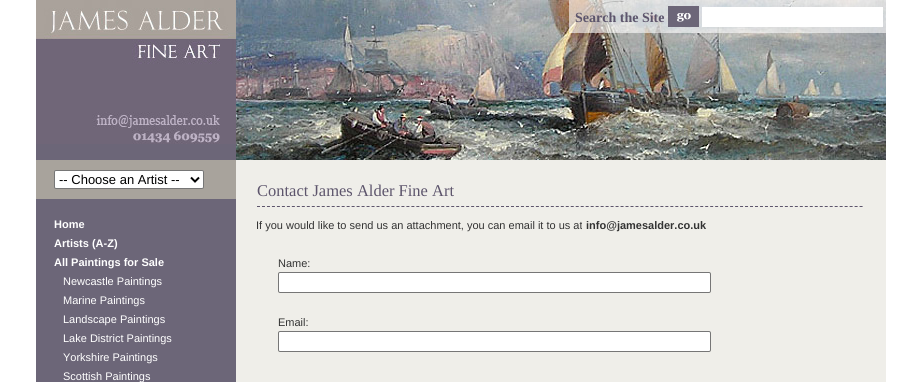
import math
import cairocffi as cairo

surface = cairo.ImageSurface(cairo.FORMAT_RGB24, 922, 382)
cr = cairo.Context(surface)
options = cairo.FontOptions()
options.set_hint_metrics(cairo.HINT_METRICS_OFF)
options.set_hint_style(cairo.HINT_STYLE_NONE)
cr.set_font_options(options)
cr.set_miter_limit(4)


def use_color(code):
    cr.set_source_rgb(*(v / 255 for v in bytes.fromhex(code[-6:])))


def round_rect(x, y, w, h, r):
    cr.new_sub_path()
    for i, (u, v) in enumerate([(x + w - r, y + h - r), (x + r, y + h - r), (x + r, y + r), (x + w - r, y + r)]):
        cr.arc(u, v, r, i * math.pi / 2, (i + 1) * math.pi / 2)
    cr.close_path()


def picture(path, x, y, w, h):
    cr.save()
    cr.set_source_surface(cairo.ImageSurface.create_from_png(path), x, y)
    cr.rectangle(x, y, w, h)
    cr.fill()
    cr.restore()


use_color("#ffffff")
cr.paint()
use_color("#6c6678")
cr.rectangle(36, 144, 200, 238)
cr.fill()
picture("img1.png", 36, 0, 200, 144)
use_color("#a8a39c")
cr.rectangle(36, 160, 200, 39)
cr.fill()
use_color("#ffffff")
round_rect(54.5, 170.5, 149, 18, 1.5)
cr.fill_preserve()
use_color("#767676")
cr.set_line_width(1)
cr.stroke()
cr.new_path()
cr.move_to(191, 177.5)
cr.line_to(195, 181.5)
cr.line_to(199, 177.5)
use_color("#000000")
cr.set_line_width(2)
cr.stroke()
cr.select_font_face("Liberation Sans")
cr.set_font_size(13)
cr.move_to(59, 184)
cr.show_text("-- Choose an Artist --")
cr.select_font_face("Liberation Sans", cairo.FONT_SLANT_NORMAL, cairo.FONT_WEIGHT_BOLD)
cr.set_font_size(11)
use_color("#ffffff")
cr.move_to(54, 228)
cr.show_text("Home")
cr.move_to(54, 247)
cr.show_text("Artists (A-Z)")
cr.move_to(54, 266)
cr.show_text("All Paintings for Sale")
cr.select_font_face("Liberation Sans")
cr.move_to(63, 285)
cr.show_text("Newcastle Paintings")
cr.move_to(63, 304)
cr.show_text("Marine Paintings")
cr.move_to(63, 323)
cr.show_text("Landscape Paintings")
cr.move_to(63, 342)
cr.show_text("Lake District Paintings")
cr.move_to(63, 361)
cr.show_text("Yorkshire Paintings")
cr.move_to(63, 380)
cr.show_text("Scottish Paintings")
use_color("#efeee9")
cr.rectangle(236, 160, 650, 222)
cr.fill()
picture("img2.png", 236, 0, 650, 160)
cr.set_source_rgba(1, 1, 1, 0.6)
cr.rectangle(569, 0, 317, 33)
cr.fill()
cr.select_font_face("Liberation Serif", cairo.FONT_SLANT_NORMAL, cairo.FONT_WEIGHT_BOLD)
cr.set_font_size(14)
use_color("#5d556c")
cr.move_to(575, 22)
cr.show_text("Search the Site")
picture("img3.png", 668, 6, 31, 21)
use_color("#ffffff")
cr.rectangle(702, 7, 181, 20)
cr.fill()
cr.new_path()
cr.move_to(257, 206.5)
cr.line_to(863, 206.5)
use_color("#5d556c")
cr.set_line_width(1)
cr.set_dash([3, 1.98])
cr.stroke()
cr.select_font_face("Liberation Serif")
cr.set_font_size(16.5)
cr.move_to(257, 196)
cr.show_text("Contact James Alder Fine Art")
cr.select_font_face("Liberation Sans")
cr.set_font_size(11)
use_color("#333333")
cr.move_to(256, 229)
cr.show_text("If you would like to send us an attachment, you can email it to us at")
cr.select_font_face("Liberation Sans", cairo.FONT_SLANT_NORMAL, cairo.FONT_WEIGHT_BOLD)
cr.move_to(586, 229)
cr.show_text("info@jamesalder.co.uk")
cr.select_font_face("Liberation Sans")
cr.move_to(278, 267)
cr.show_text("Name:")
use_color("#ffffff")
round_rect(278.5, 272.5, 432, 20, 1.5)
cr.fill_preserve()
use_color("#767676")
cr.set_dash([])
cr.stroke()
use_color("#333333")
cr.move_to(278, 326)
cr.show_text("Email:")
use_color("#ffffff")
round_rect(278.5, 331.5, 432, 20, 1.5)
cr.fill_preserve()
use_color("#767676")
cr.stroke()
surface.write_to_png("result.png")
